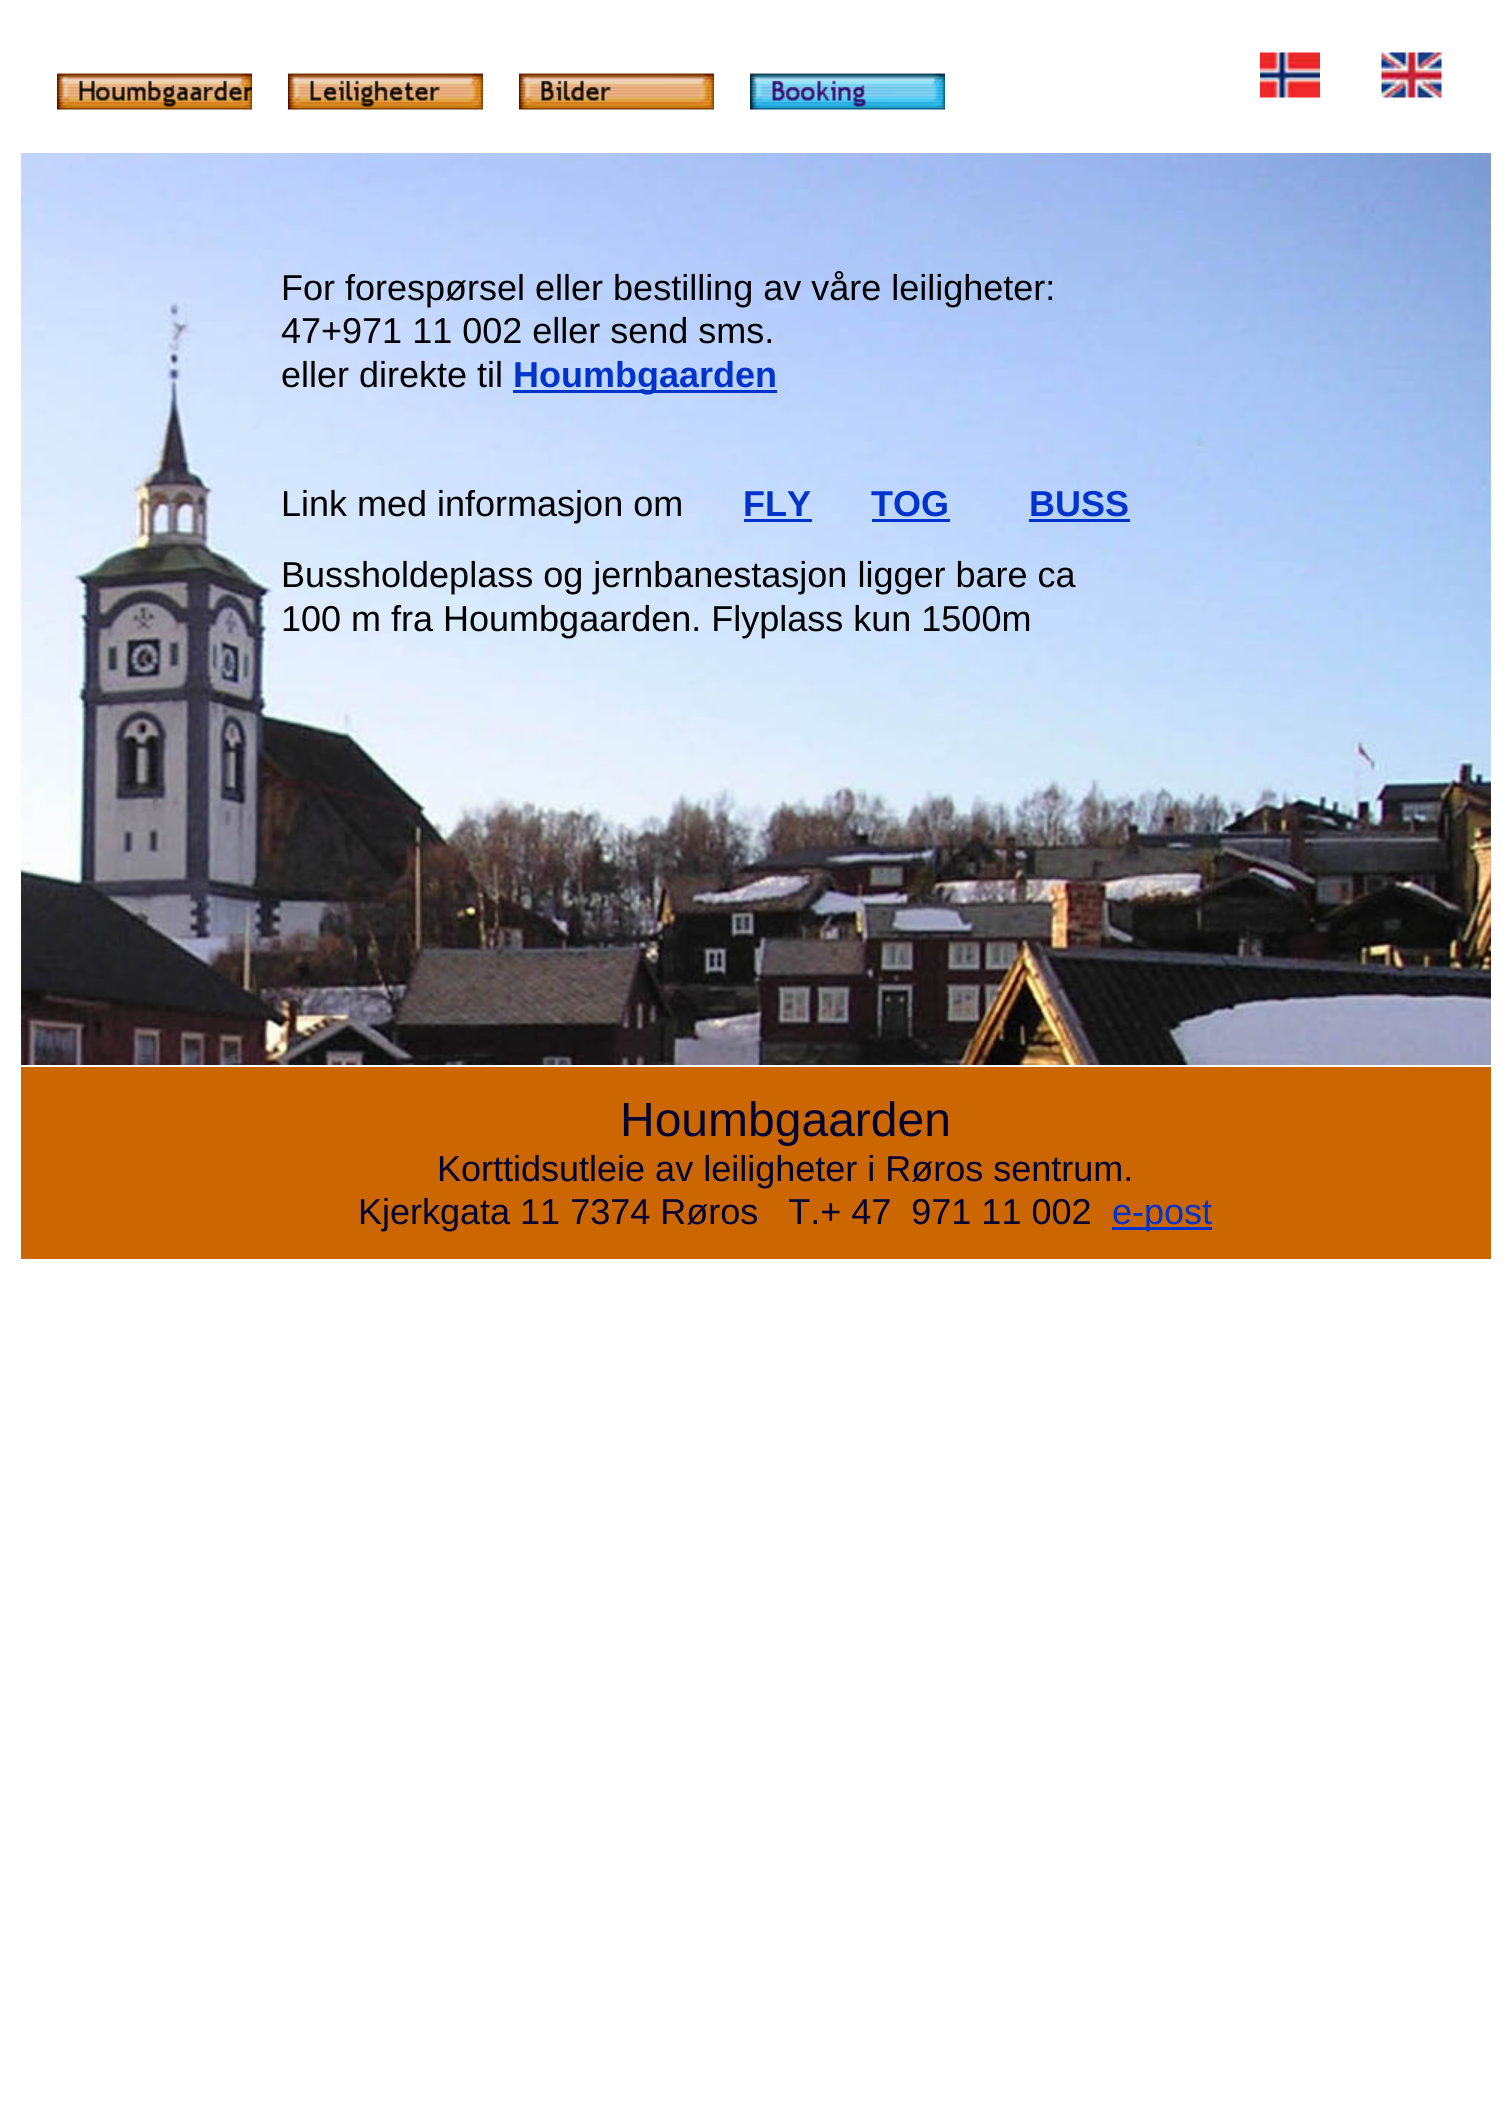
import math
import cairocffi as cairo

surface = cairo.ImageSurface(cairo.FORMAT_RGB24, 1510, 2119)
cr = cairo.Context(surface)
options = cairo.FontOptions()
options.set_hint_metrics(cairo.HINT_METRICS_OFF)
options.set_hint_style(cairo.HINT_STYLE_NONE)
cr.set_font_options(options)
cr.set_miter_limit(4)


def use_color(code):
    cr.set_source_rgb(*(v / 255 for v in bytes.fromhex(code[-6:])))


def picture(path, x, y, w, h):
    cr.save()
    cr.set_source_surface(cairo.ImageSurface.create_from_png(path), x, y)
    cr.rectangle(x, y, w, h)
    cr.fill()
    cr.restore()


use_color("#ffffff")
cr.paint()
picture("img1.png", 57, 73, 195, 37)
picture("img2.png", 288, 73, 195, 37)
picture("img3.png", 519, 73, 195, 37)
picture("img4.png", 750, 73, 195, 37)
picture("img5.png", 1260, 52, 60, 46)
picture("img6.png", 1381, 52, 61, 46)
picture("img7.png", 21, 153, 1470, 912)
cr.select_font_face("Liberation Sans")
cr.set_font_size(36)
use_color("#000000")
cr.move_to(281, 300)
cr.show_text("For forespørsel eller bestilling av våre leiligheter:")
cr.move_to(281, 343)
cr.show_text("47+971 11 002 eller send sms.")
cr.move_to(281, 387)
cr.show_text("eller direkte til")
use_color("#0033cc")
cr.rectangle(513, 390, 264, 3)
cr.fill()
cr.select_font_face("Liberation Sans", cairo.FONT_SLANT_NORMAL, cairo.FONT_WEIGHT_BOLD)
cr.move_to(513, 387)
cr.show_text("Houmbgaarden")
cr.select_font_face("Liberation Sans")
use_color("#000000")
cr.move_to(281, 516)
cr.show_text("Link med informasjon om")
cr.select_font_face("Liberation Sans", cairo.FONT_SLANT_NORMAL, cairo.FONT_WEIGHT_BOLD)
use_color("#0033cc")
cr.move_to(743, 516)
cr.show_text("FLY")
cr.rectangle(744, 519, 68, 3)
cr.fill()
cr.move_to(871, 516)
cr.show_text("TOG")
cr.rectangle(872, 519, 78, 3)
cr.fill()
cr.move_to(1029, 516)
cr.show_text("BUSS")
cr.rectangle(1029, 519, 101, 3)
cr.fill()
cr.select_font_face("Liberation Sans")
use_color("#000000")
cr.move_to(281, 587)
cr.show_text("Bussholdeplass og jernbanestasjon ligger bare ca")
cr.move_to(281, 631)
cr.show_text("100 m fra Houmbgaarden. Flyplass kun 1500m")
use_color("#cc6600")
cr.rectangle(21, 1067, 1470, 192)
cr.fill()
cr.set_font_size(48)
use_color("#000033")
cr.move_to(620, 1136)
cr.show_text("Houmbgaarden")
cr.set_font_size(36)
cr.move_to(437, 1181)
cr.show_text("Korttidsutleie av leiligheter i Røros sentrum.")
cr.move_to(358, 1224)
cr.show_text("Kjerkgata 11 7374 Røros   T.+ 47  971 11 002")
use_color("#0033cc")
cr.rectangle(1112, 1227, 100, 3)
cr.fill()
cr.move_to(1112, 1224)
cr.show_text("e-post")
surface.write_to_png("result.png")
